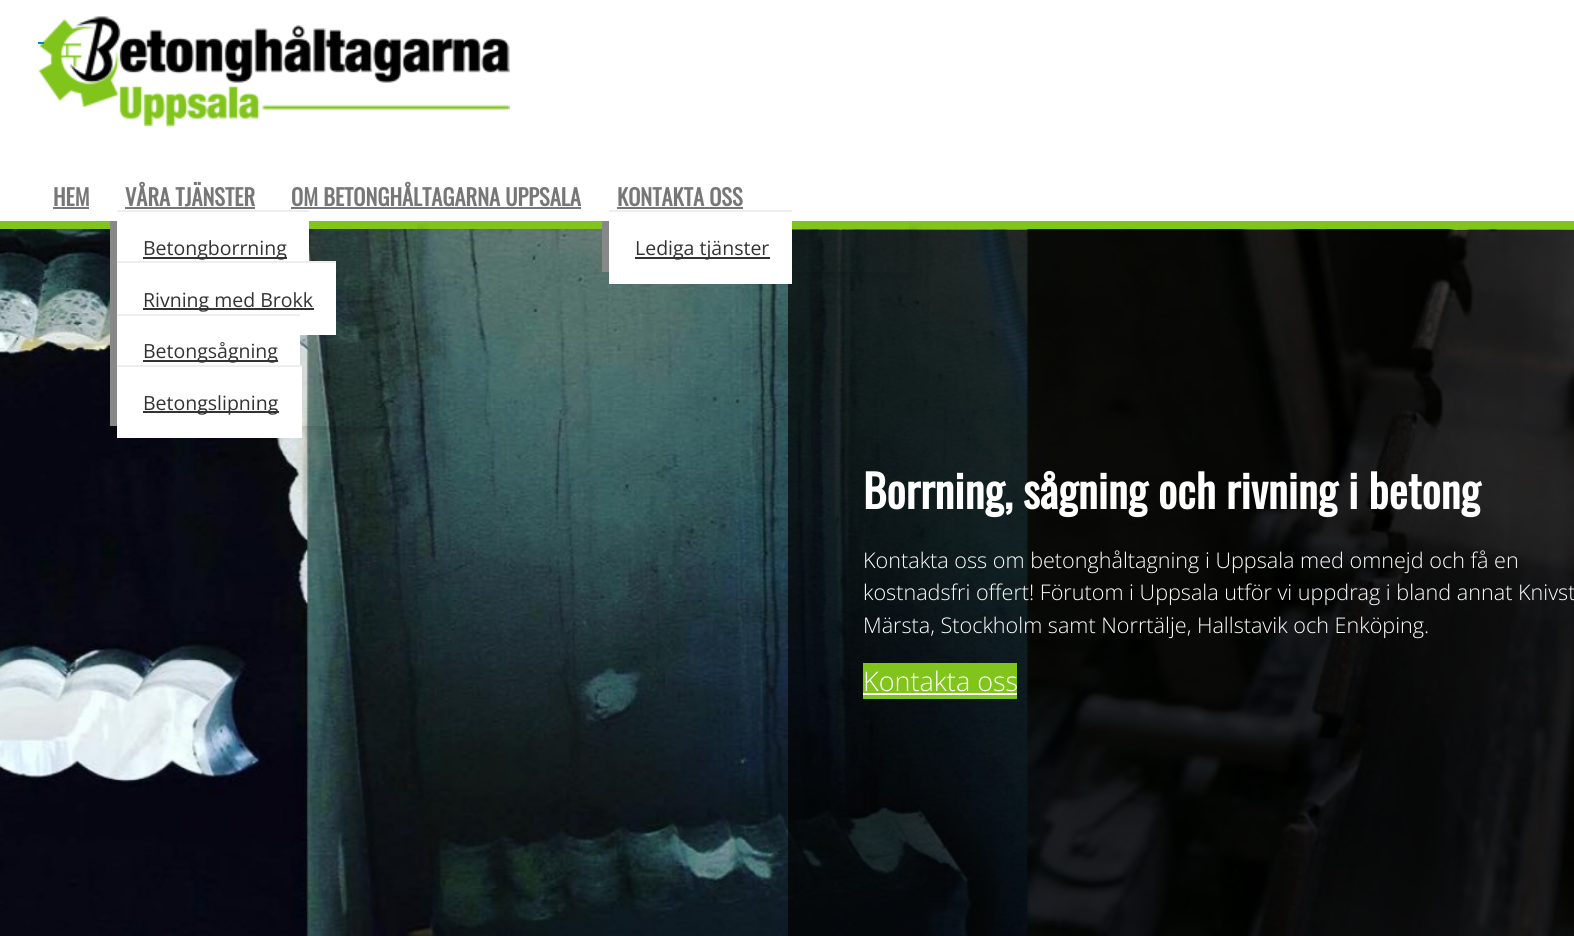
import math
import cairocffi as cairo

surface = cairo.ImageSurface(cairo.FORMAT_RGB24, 1574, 936)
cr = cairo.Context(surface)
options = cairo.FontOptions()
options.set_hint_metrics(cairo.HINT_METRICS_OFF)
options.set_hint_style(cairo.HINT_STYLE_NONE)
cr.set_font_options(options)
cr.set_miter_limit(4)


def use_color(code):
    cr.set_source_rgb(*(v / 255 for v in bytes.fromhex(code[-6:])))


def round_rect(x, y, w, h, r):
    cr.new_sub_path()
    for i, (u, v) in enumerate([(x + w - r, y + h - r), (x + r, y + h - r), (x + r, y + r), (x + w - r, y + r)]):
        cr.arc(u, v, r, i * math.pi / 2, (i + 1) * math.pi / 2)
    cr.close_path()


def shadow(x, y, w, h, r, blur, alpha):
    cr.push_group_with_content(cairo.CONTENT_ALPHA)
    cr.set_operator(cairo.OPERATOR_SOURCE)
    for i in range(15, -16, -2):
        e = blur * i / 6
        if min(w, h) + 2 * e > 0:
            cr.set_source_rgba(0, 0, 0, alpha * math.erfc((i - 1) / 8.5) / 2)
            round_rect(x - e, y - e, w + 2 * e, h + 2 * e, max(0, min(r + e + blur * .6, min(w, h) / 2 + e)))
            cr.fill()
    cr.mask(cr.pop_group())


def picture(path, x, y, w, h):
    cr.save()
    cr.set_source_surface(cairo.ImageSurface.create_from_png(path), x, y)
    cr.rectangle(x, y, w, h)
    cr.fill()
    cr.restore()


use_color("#ffffff")
cr.paint()
use_color("#80c41c")
cr.rectangle(0, 221, 1574, 8)
cr.fill()
picture("img1.png", 38, 16, 472, 111)
use_color("#0086cc")
cr.rectangle(38, 42, 6, 2)
cr.fill()
cr.select_font_face("Oswald", cairo.FONT_SLANT_NORMAL, cairo.FONT_WEIGHT_BOLD)
cr.set_font_size(22.5)
use_color("#777777")
cr.move_to(53, 206)
cr.show_text("HEM")
cr.rectangle(53, 207, 36, 2)
cr.fill()
cr.move_to(125, 206)
cr.show_text("VÅRA TJÄNSTER")
cr.rectangle(125, 207, 130, 2)
cr.fill()
picture("img2.png", 0, 229, 1574, 707)
cr.save()
cr.set_fill_rule(cairo.FILL_RULE_EVEN_ODD)
cr.new_path()
cr.move_to(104, 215)
cr.line_to(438, 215)
cr.line_to(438, 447)
cr.line_to(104, 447)
cr.close_path()
cr.move_to(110, 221)
cr.line_to(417, 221)
cr.line_to(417, 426)
cr.line_to(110, 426)
cr.close_path()
cr.clip()
use_color("#000000")
shadow(117, 228, 308, 206, 0, 4, 0.1)
cr.restore()
use_color("#888888")
cr.rectangle(110, 221, 7, 205)
cr.fill()
use_color("#ffffff")
cr.rectangle(117, 221, 192, 40)
cr.fill()
use_color("#333333")
cr.rectangle(143, 257, 144, 2)
cr.fill()
cr.select_font_face("Open Sans")
cr.set_font_size(19.5)
cr.move_to(143, 255)
cr.show_text("Betongborrning")
use_color("#eeeeee")
cr.rectangle(117, 210, 192, 2)
cr.fill()
use_color("#ffffff")
cr.rectangle(117, 263, 219, 72)
cr.fill()
use_color("#333333")
cr.rectangle(143, 308, 171, 2)
cr.fill()
cr.move_to(143, 307)
cr.show_text("Rivning med Brokk")
use_color("#eeeeee")
cr.rectangle(117, 261, 219, 2)
cr.fill()
use_color("#ffffff")
cr.rectangle(117, 335, 183, 30)
cr.fill()
use_color("#333333")
cr.rectangle(143, 360, 135, 2)
cr.fill()
cr.move_to(143, 358)
cr.show_text("Betongsågning")
use_color("#eeeeee")
cr.rectangle(117, 314, 183, 2)
cr.fill()
use_color("#ffffff")
cr.rectangle(117, 367, 185, 71)
cr.fill()
use_color("#333333")
cr.rectangle(143, 411, 136, 2)
cr.fill()
cr.move_to(143, 410)
cr.show_text("Betongslipning")
use_color("#eeeeee")
cr.rectangle(117, 365, 185, 2)
cr.fill()
cr.select_font_face("Oswald", cairo.FONT_SLANT_NORMAL, cairo.FONT_WEIGHT_BOLD)
cr.set_font_size(22.5)
use_color("#777777")
cr.move_to(291, 206)
cr.show_text("OM BETONGHÅLTAGARNA UPPSALA")
cr.rectangle(291, 207, 290, 2)
cr.fill()
cr.move_to(617, 206)
cr.show_text("KONTAKTA OSS")
cr.rectangle(617, 207, 126, 2)
cr.fill()
cr.set_source_rgba(0, 0, 0, 0.7)
cr.rectangle(788, 230, 786, 706)
cr.fill()
cr.save()
cr.set_fill_rule(cairo.FILL_RULE_EVEN_ODD)
cr.new_path()
cr.move_to(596, 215)
cr.line_to(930, 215)
cr.line_to(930, 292)
cr.line_to(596, 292)
cr.close_path()
cr.move_to(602, 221)
cr.line_to(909, 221)
cr.line_to(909, 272)
cr.line_to(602, 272)
cr.close_path()
cr.clip()
use_color("#000000")
shadow(609, 228, 308, 51, 0, 4, 0.1)
cr.restore()
use_color("#888888")
cr.rectangle(602, 221, 7, 51)
cr.fill()
use_color("#ffffff")
cr.rectangle(609, 221, 183, 63)
cr.fill()
use_color("#333333")
cr.rectangle(635, 257, 135, 2)
cr.fill()
cr.select_font_face("Open Sans")
cr.set_font_size(19.5)
cr.move_to(635, 255)
cr.show_text("Lediga tjänster")
use_color("#eeeeee")
cr.rectangle(609, 210, 183, 2)
cr.fill()
cr.select_font_face("Oswald", cairo.FONT_SLANT_NORMAL, cairo.FONT_WEIGHT_BOLD)
cr.set_font_size(45)
use_color("#ffffff")
cr.move_to(863, 509)
cr.show_text("Borrning, sågning och rivning i betong")
cr.select_font_face("Open Sans Light")
cr.set_font_size(21.6)
cr.move_to(863, 568)
cr.show_text("Kontakta oss om betonghåltagning i Uppsala med omnejd och få en")
cr.move_to(863, 600)
cr.show_text("kostnadsfri offert! Förutom i Uppsala utför vi uppdrag i bland annat Knivst")
cr.move_to(863, 633)
cr.show_text("Märsta, Stockholm samt Norrtälje, Hallstavik och Enköping.")
use_color("#80c41c")
cr.rectangle(863, 663, 154, 36)
cr.fill()
cr.set_font_size(27)
use_color("#ffffff")
cr.move_to(863, 691)
cr.show_text("Kontakta oss")
cr.rectangle(863, 693, 154, 2)
cr.fill()
surface.write_to_png("result.png")
